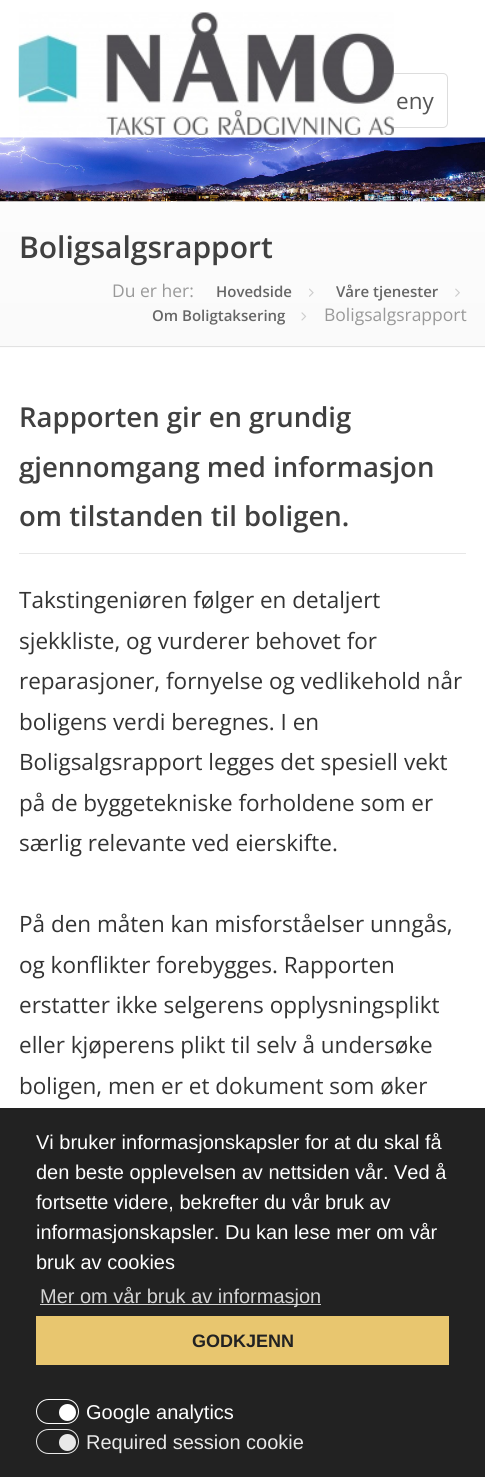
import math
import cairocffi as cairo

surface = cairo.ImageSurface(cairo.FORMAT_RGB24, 485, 1477)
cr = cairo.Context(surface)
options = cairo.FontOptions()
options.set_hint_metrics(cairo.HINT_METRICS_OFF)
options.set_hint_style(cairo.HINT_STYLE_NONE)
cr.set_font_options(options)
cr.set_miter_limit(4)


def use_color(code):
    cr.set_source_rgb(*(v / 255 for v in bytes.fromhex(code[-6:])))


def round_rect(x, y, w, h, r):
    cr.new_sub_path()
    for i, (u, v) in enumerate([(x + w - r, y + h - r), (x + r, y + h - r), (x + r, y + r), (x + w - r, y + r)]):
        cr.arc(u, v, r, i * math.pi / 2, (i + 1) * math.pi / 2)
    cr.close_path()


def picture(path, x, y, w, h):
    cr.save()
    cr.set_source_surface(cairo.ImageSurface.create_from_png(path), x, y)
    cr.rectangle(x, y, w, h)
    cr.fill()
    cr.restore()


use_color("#ffffff")
cr.paint()
round_rect(363.5, 73.5, 84, 54, 4.5)
use_color("#dddddd")
cr.set_line_width(1)
cr.stroke()
picture("img1.png", 18, 12, 376, 123)
cr.select_font_face("Open Sans")
cr.set_font_size(22.5)
use_color("#555555")
cr.move_to(396, 109)
cr.show_text("eny")
gradient = cairo.LinearGradient(243, 346, 243, 201)
gradient.add_color_stop_rgba(0, 0.98, 0.98, 0.98, 1)
gradient.add_color_stop_rgba(1, 0.988, 0.988, 0.988, 1)
cr.set_source(gradient)
cr.rectangle(0, 201, 485, 145)
cr.fill()
picture("img2.png", 0, 137, 485, 65)
gradient = cairo.LinearGradient(243, 491, 243, 346)
gradient.add_color_stop_rgba(0, 0.98, 0.98, 0.98, 1)
gradient.add_color_stop_rgba(1, 0.988, 0.988, 0.988, 1)
cr.set_source(gradient)
cr.rectangle(0, 347, 485, 1)
cr.fill()
use_color("#e2e2e2")
cr.rectangle(0, 346, 485, 1)
cr.fill()
cr.select_font_face("Open Sans SemiBold")
cr.set_font_size(30)
use_color("#404040")
cr.move_to(19, 258)
cr.show_text("Boligsalgsrapport")
cr.select_font_face("Open Sans")
cr.set_font_size(17.5)
use_color("#999999")
cr.move_to(112, 297)
cr.show_text("Du er her:")
cr.select_font_face("Open Sans SemiBold")
cr.set_font_size(15)
use_color("#666666")
cr.move_to(216, 297)
cr.show_text("Hovedside")
picture("img3.png", 309, 288, 5, 9)
cr.move_to(336, 297)
cr.show_text("Våre tjenester")
picture("img4.png", 455, 288, 5, 9)
cr.move_to(152, 321)
cr.show_text("Om Boligtaksering")
picture("img5.png", 301, 312, 6, 9)
cr.select_font_face("Open Sans")
cr.set_font_size(17.5)
use_color("#999999")
cr.move_to(324, 321)
cr.show_text("Boligsalgsrapport")
use_color("#e7e7e7")
cr.rectangle(19, 553, 447, 1)
cr.fill()
cr.select_font_face("Open Sans SemiBold")
cr.set_font_size(27.5)
use_color("#404040")
cr.move_to(19, 427)
cr.show_text("Rapporten gir en grundig")
cr.move_to(19, 477)
cr.show_text("gjennomgang med informasjon")
cr.move_to(19, 526)
cr.show_text("om tilstanden til boligen.")
cr.select_font_face("Open Sans")
cr.set_font_size(22.5)
use_color("#333333")
cr.move_to(19, 608)
cr.show_text("Takstingeniøren følger en detaljert")
cr.move_to(19, 649)
cr.show_text("sjekkliste, og vurderer behovet for")
cr.move_to(19, 689)
cr.show_text("reparasjoner, fornyelse og vedlikehold når")
cr.move_to(19, 730)
cr.show_text("boligens verdi beregnes. I en")
cr.move_to(19, 770)
cr.show_text("Boligsalgsrapport legges det spesiell vekt")
cr.move_to(19, 811)
cr.show_text("på de byggetekniske forholdene som er")
cr.move_to(19, 851)
cr.show_text("særlig relevante ved eierskifte.")
cr.move_to(19, 932)
cr.show_text("På den måten kan misforståelser unngås,")
cr.move_to(19, 973)
cr.show_text("og konflikter forebygges. Rapporten")
cr.move_to(19, 1013)
cr.show_text("erstatter ikke selgerens opplysningsplikt")
cr.move_to(19, 1053)
cr.show_text("eller kjøperens plikt til selv å undersøke")
cr.move_to(19, 1094)
cr.show_text("boligen, men er et dokument som øker")
use_color("#222222")
cr.rectangle(0, 1108, 485, 369)
cr.fill()
cr.select_font_face("Liberation Sans")
cr.set_font_size(20)
use_color("#ffffff")
cr.move_to(36, 1149)
cr.show_text("Vi bruker informasjonskapsler for at du skal få")
cr.move_to(36, 1179)
cr.show_text("den beste opplevelsen av nettsiden vår. Ved å")
cr.move_to(36, 1209)
cr.show_text("fortsette videre, bekrefter du vår bruk av")
cr.move_to(36, 1239)
cr.show_text("informasjonskapsler. Du kan lese mer om vår")
cr.move_to(36, 1269)
cr.show_text("bruk av cookies")
use_color("#d3d3d3")
cr.rectangle(40, 1304, 281, 1)
cr.fill()
cr.move_to(40, 1303)
cr.show_text("Mer om vår bruk av informasjon")
use_color("#e8c66f")
cr.rectangle(36, 1316, 413, 49)
cr.fill()
cr.select_font_face("Liberation Sans", cairo.FONT_SLANT_NORMAL, cairo.FONT_WEIGHT_BOLD)
cr.set_font_size(18)
use_color("#222222")
cr.move_to(192, 1347)
cr.show_text("GODKJENN")
round_rect(36.5, 1399.5, 42, 24, 12)
use_color("#ffffff")
cr.stroke()
cr.arc(67.5, 1412.5, 8.5, 0, 2 * math.pi)
cr.fill()
cr.select_font_face("Liberation Sans")
cr.set_font_size(20)
cr.move_to(86, 1419)
cr.show_text("Google analytics")
round_rect(36.5, 1429.5, 42, 24, 12)
use_color("#e9e9e9")
cr.stroke()
cr.arc(67.5, 1442.5, 8.5, 0, 2 * math.pi)
cr.fill()
cr.move_to(86, 1449)
cr.show_text("Required session cookie")
surface.write_to_png("result.png")
